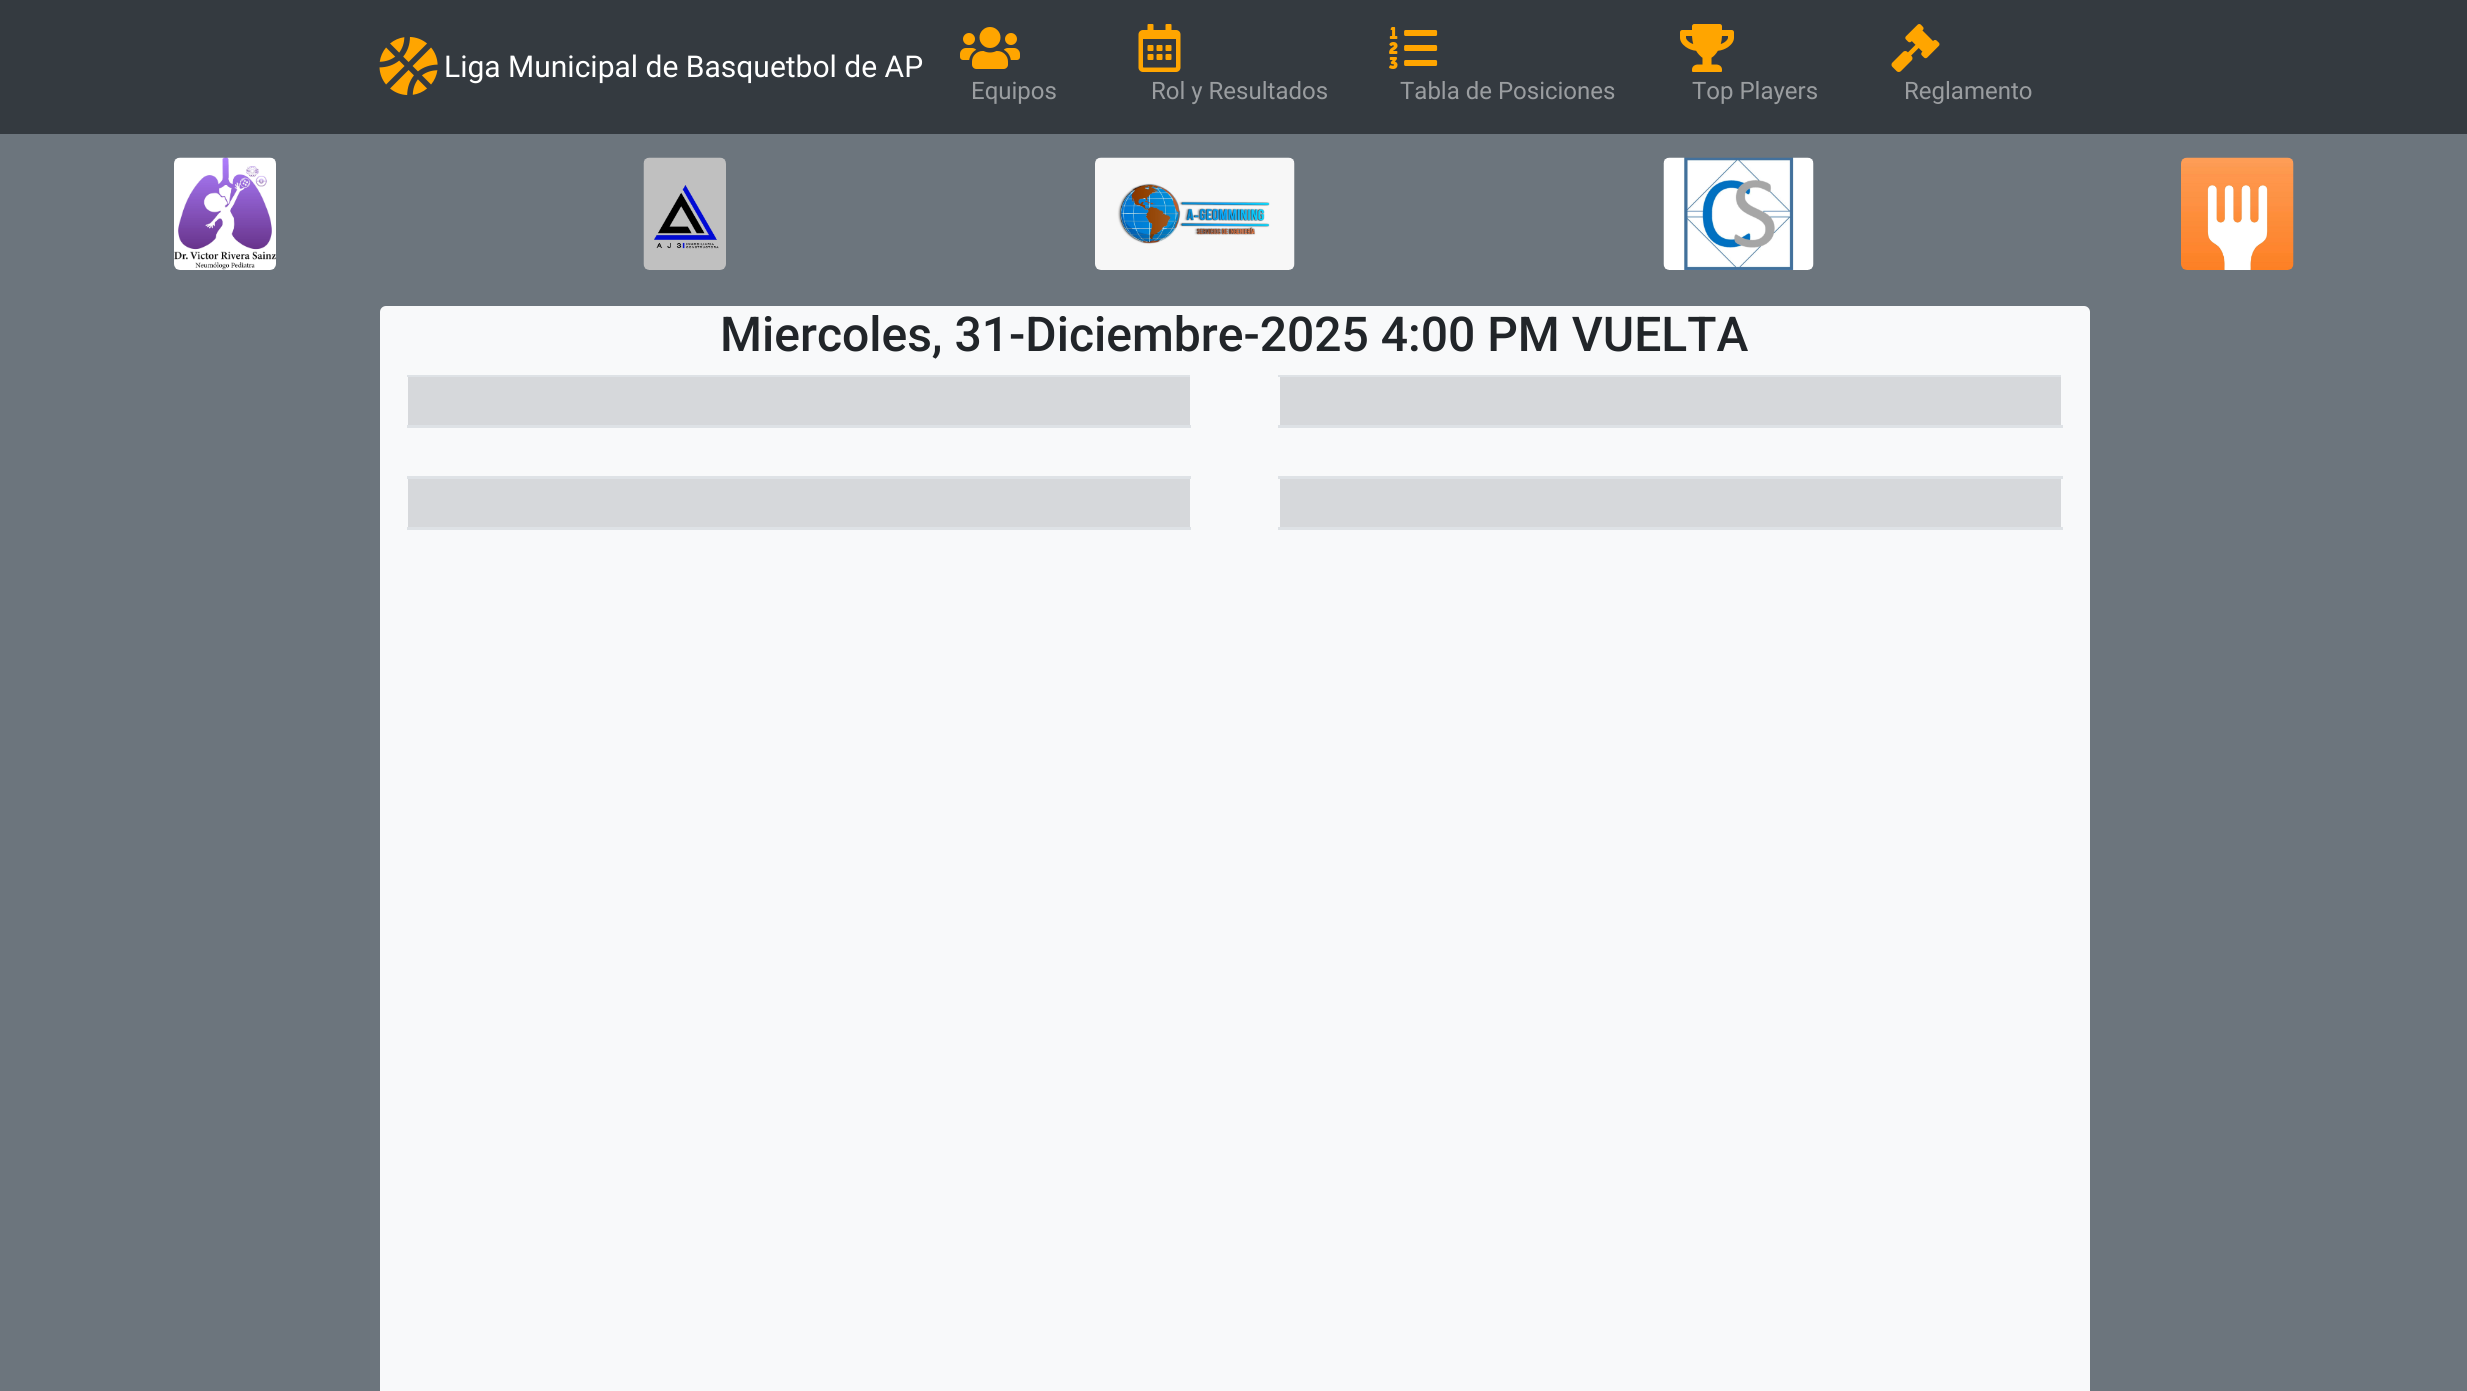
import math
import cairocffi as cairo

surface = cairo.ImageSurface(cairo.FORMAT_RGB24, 2467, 1391)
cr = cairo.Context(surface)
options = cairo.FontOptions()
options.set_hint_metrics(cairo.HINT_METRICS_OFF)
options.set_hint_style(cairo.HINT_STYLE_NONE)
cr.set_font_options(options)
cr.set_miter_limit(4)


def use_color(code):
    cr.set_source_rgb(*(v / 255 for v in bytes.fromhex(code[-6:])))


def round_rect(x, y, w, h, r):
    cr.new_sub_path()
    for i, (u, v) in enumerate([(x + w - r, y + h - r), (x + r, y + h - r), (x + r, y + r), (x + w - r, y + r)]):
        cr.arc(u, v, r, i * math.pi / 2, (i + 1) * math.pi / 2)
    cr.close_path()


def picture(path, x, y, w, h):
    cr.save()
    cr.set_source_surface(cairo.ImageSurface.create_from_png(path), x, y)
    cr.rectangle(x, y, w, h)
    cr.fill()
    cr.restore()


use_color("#6c757d")
cr.paint()
use_color("#343a40")
cr.rectangle(0, 0, 2467, 134)
cr.fill()
picture("img1.png", 379, 37, 59, 58)
cr.select_font_face("Roboto")
cr.set_font_size(30)
use_color("#ffffff")
cr.move_to(444, 77)
cr.show_text("Liga Municipal de Basquetbol de AP")
picture("img2.png", 960, 27, 60, 42)
cr.set_font_size(24)
use_color("#9a9da0")
cr.move_to(971, 99)
cr.show_text("Equipos")
picture("img3.png", 1138, 24, 43, 48)
cr.move_to(1151, 99)
cr.show_text("Rol y Resultados")
picture("img4.png", 1389, 27, 49, 42)
cr.move_to(1400, 99)
cr.show_text("Tabla de Posiciones")
picture("img5.png", 1680, 24, 54, 48)
cr.move_to(1692, 99)
cr.show_text("Top Players")
picture("img6.png", 1891, 24, 49, 48)
cr.move_to(1904, 99)
cr.show_text("Reglamento")
picture("img7.png", 174, 157, 102, 113)
picture("img8.png", 643, 157, 83, 113)
picture("img9.png", 1095, 157, 200, 113)
picture("img10.png", 1663, 157, 151, 113)
picture("img11.png", 2181, 157, 113, 113)
use_color("#f8f9fa")
round_rect(380, 306, 1710, 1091, 6)
cr.fill()
cr.select_font_face("Roboto Medium")
cr.set_font_size(48)
use_color("#212529")
cr.move_to(720, 351)
cr.show_text("Miercoles, 31-Diciembre-2025 4:00 PM VUELTA")
use_color("#d6d8db")
cr.rectangle(408, 377, 782, 48)
cr.fill()
use_color("#dee2e6")
cr.rectangle(407, 375, 783, 2)
cr.fill()
cr.rectangle(407, 425, 784, 3)
cr.fill()
cr.rectangle(407, 476, 784, 3)
cr.fill()
use_color("#d6d8db")
cr.rectangle(408, 479, 782, 48)
cr.fill()
use_color("#dee2e6")
cr.rectangle(407, 527, 784, 3)
cr.fill()
use_color("#d6d8db")
cr.rectangle(1280, 377, 781, 48)
cr.fill()
use_color("#dee2e6")
cr.rectangle(1278, 375, 783, 2)
cr.fill()
cr.rectangle(1278, 425, 785, 3)
cr.fill()
cr.rectangle(1278, 476, 785, 3)
cr.fill()
use_color("#d6d8db")
cr.rectangle(1280, 479, 781, 48)
cr.fill()
use_color("#dee2e6")
cr.rectangle(1278, 527, 785, 3)
cr.fill()
surface.write_to_png("result.png")
